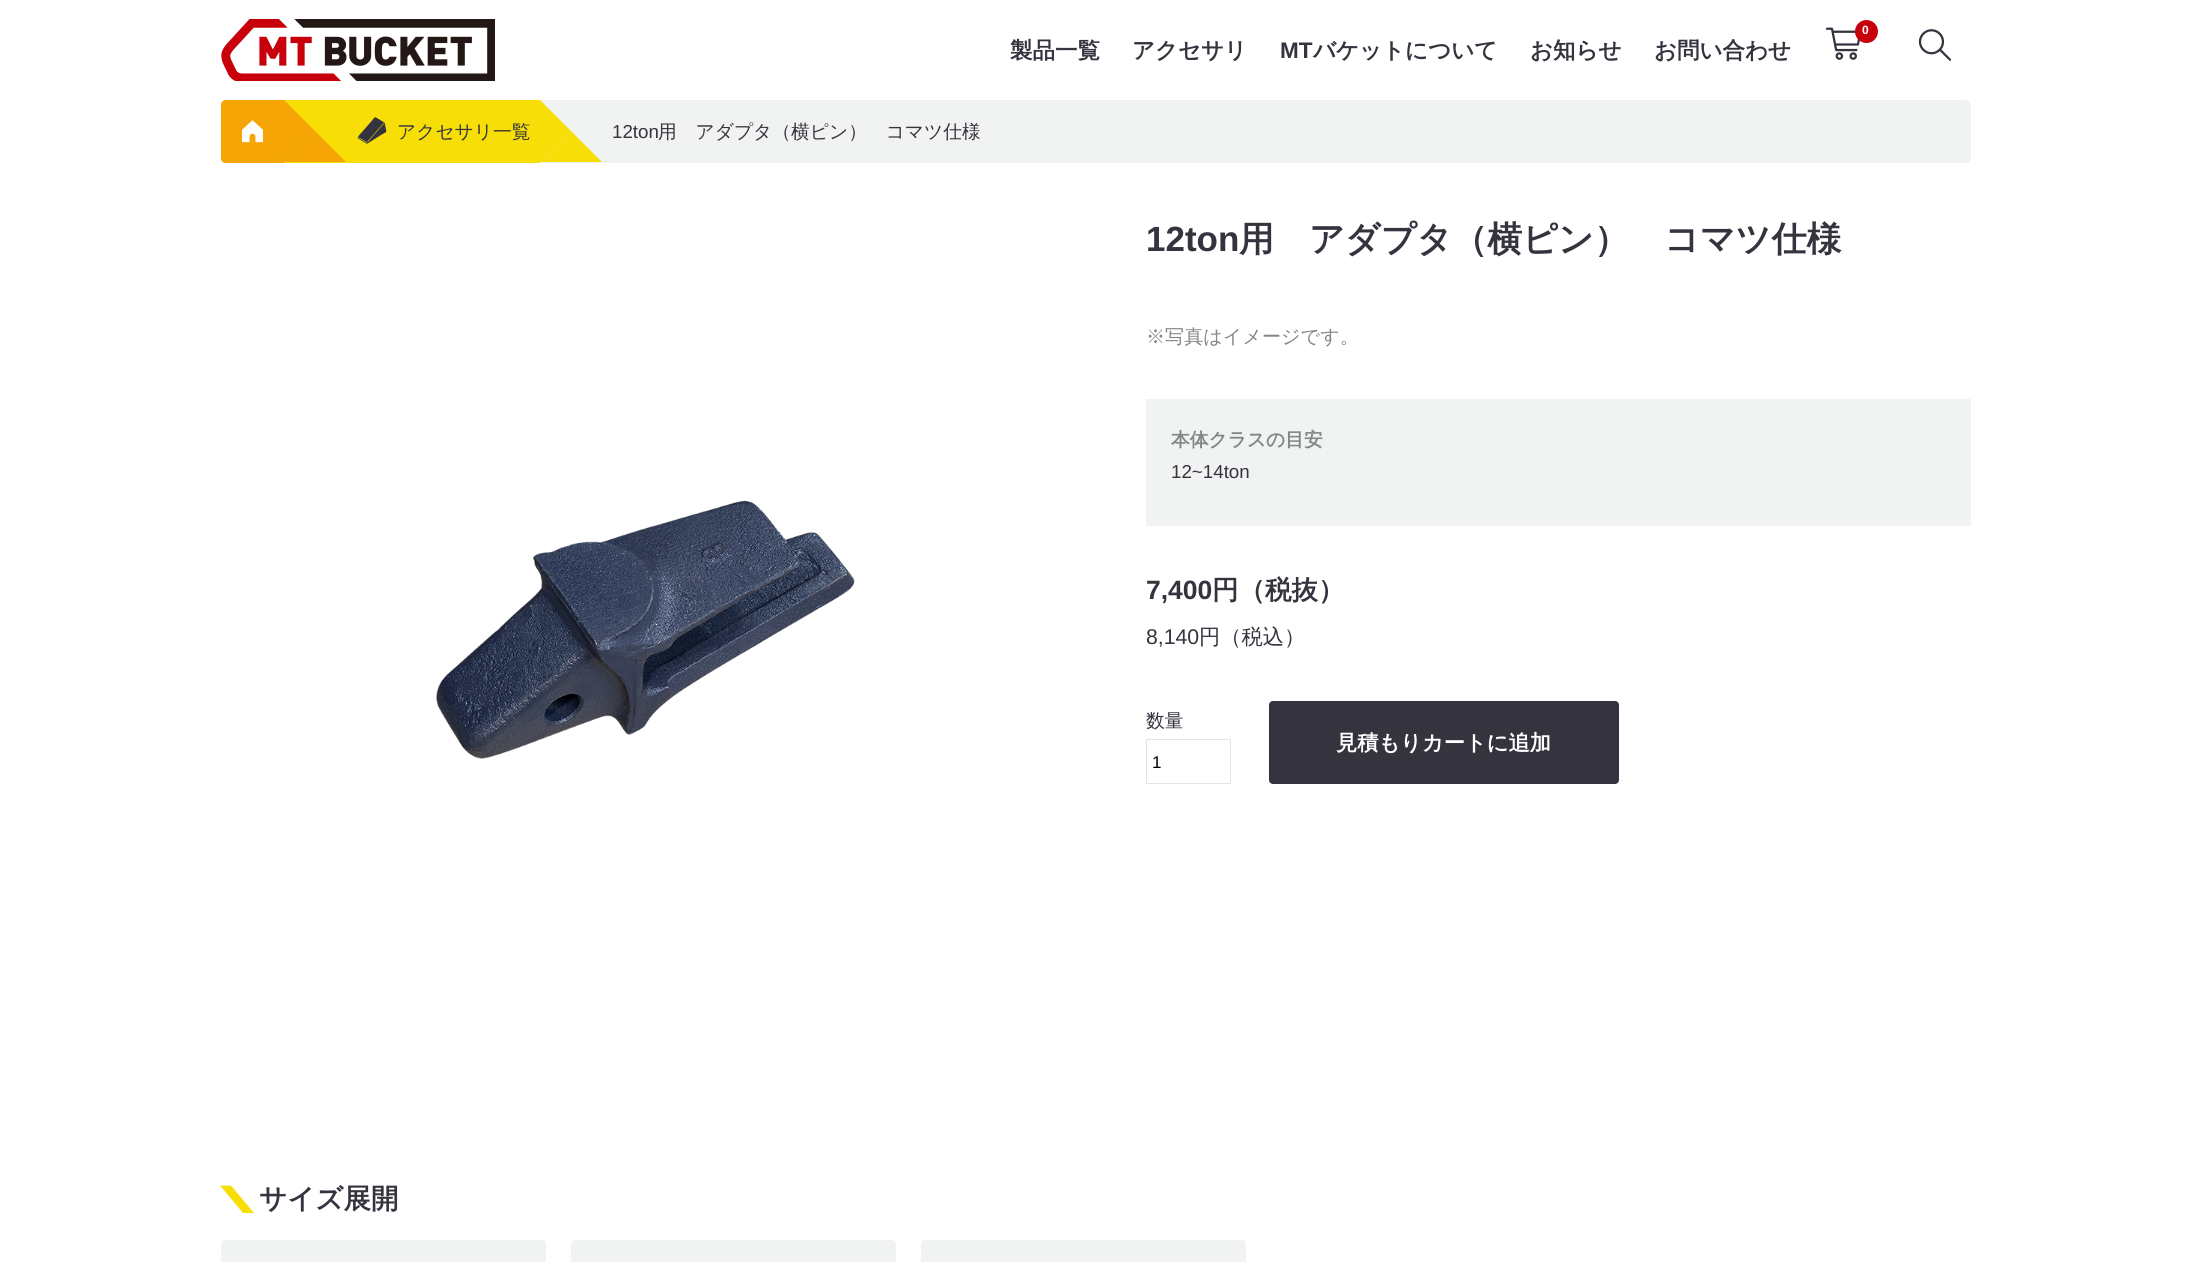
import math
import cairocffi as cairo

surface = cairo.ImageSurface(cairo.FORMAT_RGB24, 2191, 1262)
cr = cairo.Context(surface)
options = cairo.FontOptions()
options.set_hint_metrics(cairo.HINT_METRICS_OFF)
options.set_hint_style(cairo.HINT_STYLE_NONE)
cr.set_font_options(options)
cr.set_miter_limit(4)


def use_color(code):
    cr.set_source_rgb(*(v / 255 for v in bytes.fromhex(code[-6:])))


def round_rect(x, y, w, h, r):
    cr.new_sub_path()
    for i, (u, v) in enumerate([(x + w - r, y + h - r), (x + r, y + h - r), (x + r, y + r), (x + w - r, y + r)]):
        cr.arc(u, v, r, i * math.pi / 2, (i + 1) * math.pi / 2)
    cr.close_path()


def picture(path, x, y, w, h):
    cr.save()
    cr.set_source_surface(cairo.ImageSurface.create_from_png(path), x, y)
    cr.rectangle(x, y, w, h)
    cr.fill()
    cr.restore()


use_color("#ffffff")
cr.paint()
picture("img1.png", 221, 19, 274, 62)
picture("img2.png", 1825, 27, 35, 33)
use_color("#c7000b")
cr.arc(1866.5, 31.5, 11.5, 0, 2 * math.pi)
cr.fill()
cr.select_font_face("Liberation Sans", cairo.FONT_SLANT_NORMAL, cairo.FONT_WEIGHT_BOLD)
cr.set_font_size(12)
use_color("#ffffff")
cr.move_to(1862, 34)
cr.show_text("0")
picture("img3.png", 1918, 29, 34, 32)
cr.select_font_face("WenQuanYi Zen Hei", cairo.FONT_SLANT_NORMAL, cairo.FONT_WEIGHT_BOLD)
cr.set_font_size(22.5)
use_color("#35333e")
cr.move_to(1010, 58)
cr.show_text("製品一覧")
cr.move_to(1132, 58)
cr.show_text("アクセサリ")
cr.select_font_face("Liberation Sans", cairo.FONT_SLANT_NORMAL, cairo.FONT_WEIGHT_BOLD)
cr.move_to(1280, 58)
cr.show_text("MT")
cr.select_font_face("WenQuanYi Zen Hei", cairo.FONT_SLANT_NORMAL, cairo.FONT_WEIGHT_BOLD)
cr.move_to(1313, 58)
cr.show_text("バケットについて")
cr.move_to(1530, 58)
cr.show_text("お知らせ")
cr.move_to(1654, 58)
cr.show_text("お問い合わせ")
use_color("#f1f2f2")
round_rect(221, 100, 1750, 63, 5)
cr.fill()
use_color("#f6a506")
cr.new_path()
cr.move_to(226, 100)
cr.line_to(284, 100)
cr.line_to(284, 163)
cr.line_to(226, 163)
cr.curve_to(223, 163, 221, 161, 221, 158)
cr.line_to(221, 105)
cr.curve_to(221, 102, 223, 100, 226, 100)
cr.close_path()
cr.fill()
picture("img4.png", 242, 120, 21, 23)
use_color("#f6de06")
cr.rectangle(284, 100, 256, 63)
cr.fill()
use_color("#f6a506")
cr.new_path()
cr.move_to(346, 162)
cr.line_to(284, 162)
cr.line_to(315, 131)
cr.close_path()
cr.fill()
cr.new_path()
cr.move_to(284, 162)
cr.line_to(284, 100)
cr.line_to(315, 131)
cr.close_path()
cr.fill()
picture("img5.png", 357, 117, 30, 27)
cr.select_font_face("WenQuanYi Zen Hei Medium")
cr.set_font_size(18.75)
use_color("#35333e")
cr.move_to(397, 138)
cr.show_text("アクセサリ一覧")
use_color("#f6de06")
cr.new_path()
cr.move_to(602, 162)
cr.line_to(540, 162)
cr.line_to(571, 131)
cr.close_path()
cr.fill()
cr.new_path()
cr.move_to(540, 162)
cr.line_to(540, 100)
cr.line_to(571, 131)
cr.close_path()
cr.fill()
cr.select_font_face("Liberation Sans")
use_color("#35333e")
cr.move_to(612, 138)
cr.show_text("12ton")
cr.select_font_face("WenQuanYi Zen Hei Medium")
cr.move_to(658, 138)
cr.show_text("用　アダプタ（横ピン）　コマツ仕様")
picture("img6.png", 436, 500, 419, 259)
cr.select_font_face("Liberation Sans", cairo.FONT_SLANT_NORMAL, cairo.FONT_WEIGHT_BOLD)
cr.set_font_size(35)
cr.move_to(1146, 251)
cr.show_text("12ton")
cr.select_font_face("WenQuanYi Zen Hei", cairo.FONT_SLANT_NORMAL, cairo.FONT_WEIGHT_BOLD)
cr.move_to(1239, 251)
cr.show_text("用　アダプタ（横ピン）　コマツ仕様")
cr.select_font_face("WenQuanYi Zen Hei Medium")
cr.set_font_size(19.1)
use_color("#838689")
cr.move_to(1146, 343)
cr.show_text("※写真はイメージです。")
use_color("#f1f2f2")
cr.rectangle(1146, 399, 825, 127)
cr.fill()
cr.select_font_face("WenQuanYi Zen Hei", cairo.FONT_SLANT_NORMAL, cairo.FONT_WEIGHT_BOLD)
cr.set_font_size(18.75)
use_color("#838689")
cr.move_to(1171, 446)
cr.show_text("本体クラスの目安")
cr.select_font_face("Liberation Sans")
use_color("#35333e")
cr.move_to(1171, 478)
cr.show_text("12~14ton")
cr.select_font_face("Liberation Sans", cairo.FONT_SLANT_NORMAL, cairo.FONT_WEIGHT_BOLD)
cr.set_font_size(26.5)
cr.move_to(1146, 599)
cr.show_text("7,400")
cr.select_font_face("WenQuanYi Zen Hei", cairo.FONT_SLANT_NORMAL, cairo.FONT_WEIGHT_BOLD)
cr.move_to(1212, 599)
cr.show_text("円（税抜）")
cr.select_font_face("Liberation Sans")
cr.set_font_size(21.25)
cr.move_to(1146, 644)
cr.show_text("8,140")
cr.select_font_face("WenQuanYi Zen Hei Medium")
cr.move_to(1199, 644)
cr.show_text("円（税込）")
cr.set_font_size(18.75)
cr.move_to(1146, 727)
cr.show_text("数量")
cr.rectangle(1146.5, 739.5, 84, 44)
use_color("#e3e4e5")
cr.set_line_width(1)
cr.stroke()
cr.select_font_face("Liberation Sans")
cr.set_font_size(17)
use_color("#000000")
cr.move_to(1152, 768)
cr.show_text("1")
use_color("#35333e")
round_rect(1269, 701, 350, 83, 4)
cr.fill()
cr.select_font_face("WenQuanYi Zen Hei", cairo.FONT_SLANT_NORMAL, cairo.FONT_WEIGHT_BOLD)
cr.set_font_size(21.25)
use_color("#ffffff")
cr.move_to(1336, 750)
cr.show_text("見積もりカートに追加")
use_color("#f6de06")
cr.new_path()
cr.move_to(220, 1185.5)
cr.line_to(231, 1185.5)
cr.line_to(254, 1213)
cr.line_to(243, 1213)
cr.close_path()
cr.fill()
cr.set_font_size(27.5)
use_color("#35333e")
cr.move_to(259, 1208)
cr.show_text("サイズ展開")
use_color("#f1f2f2")
round_rect(221, 1240, 325, 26, 4)
cr.fill()
round_rect(571, 1240, 325, 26, 4)
cr.fill()
round_rect(921, 1240, 325, 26, 4)
cr.fill()
surface.write_to_png("result.png")
